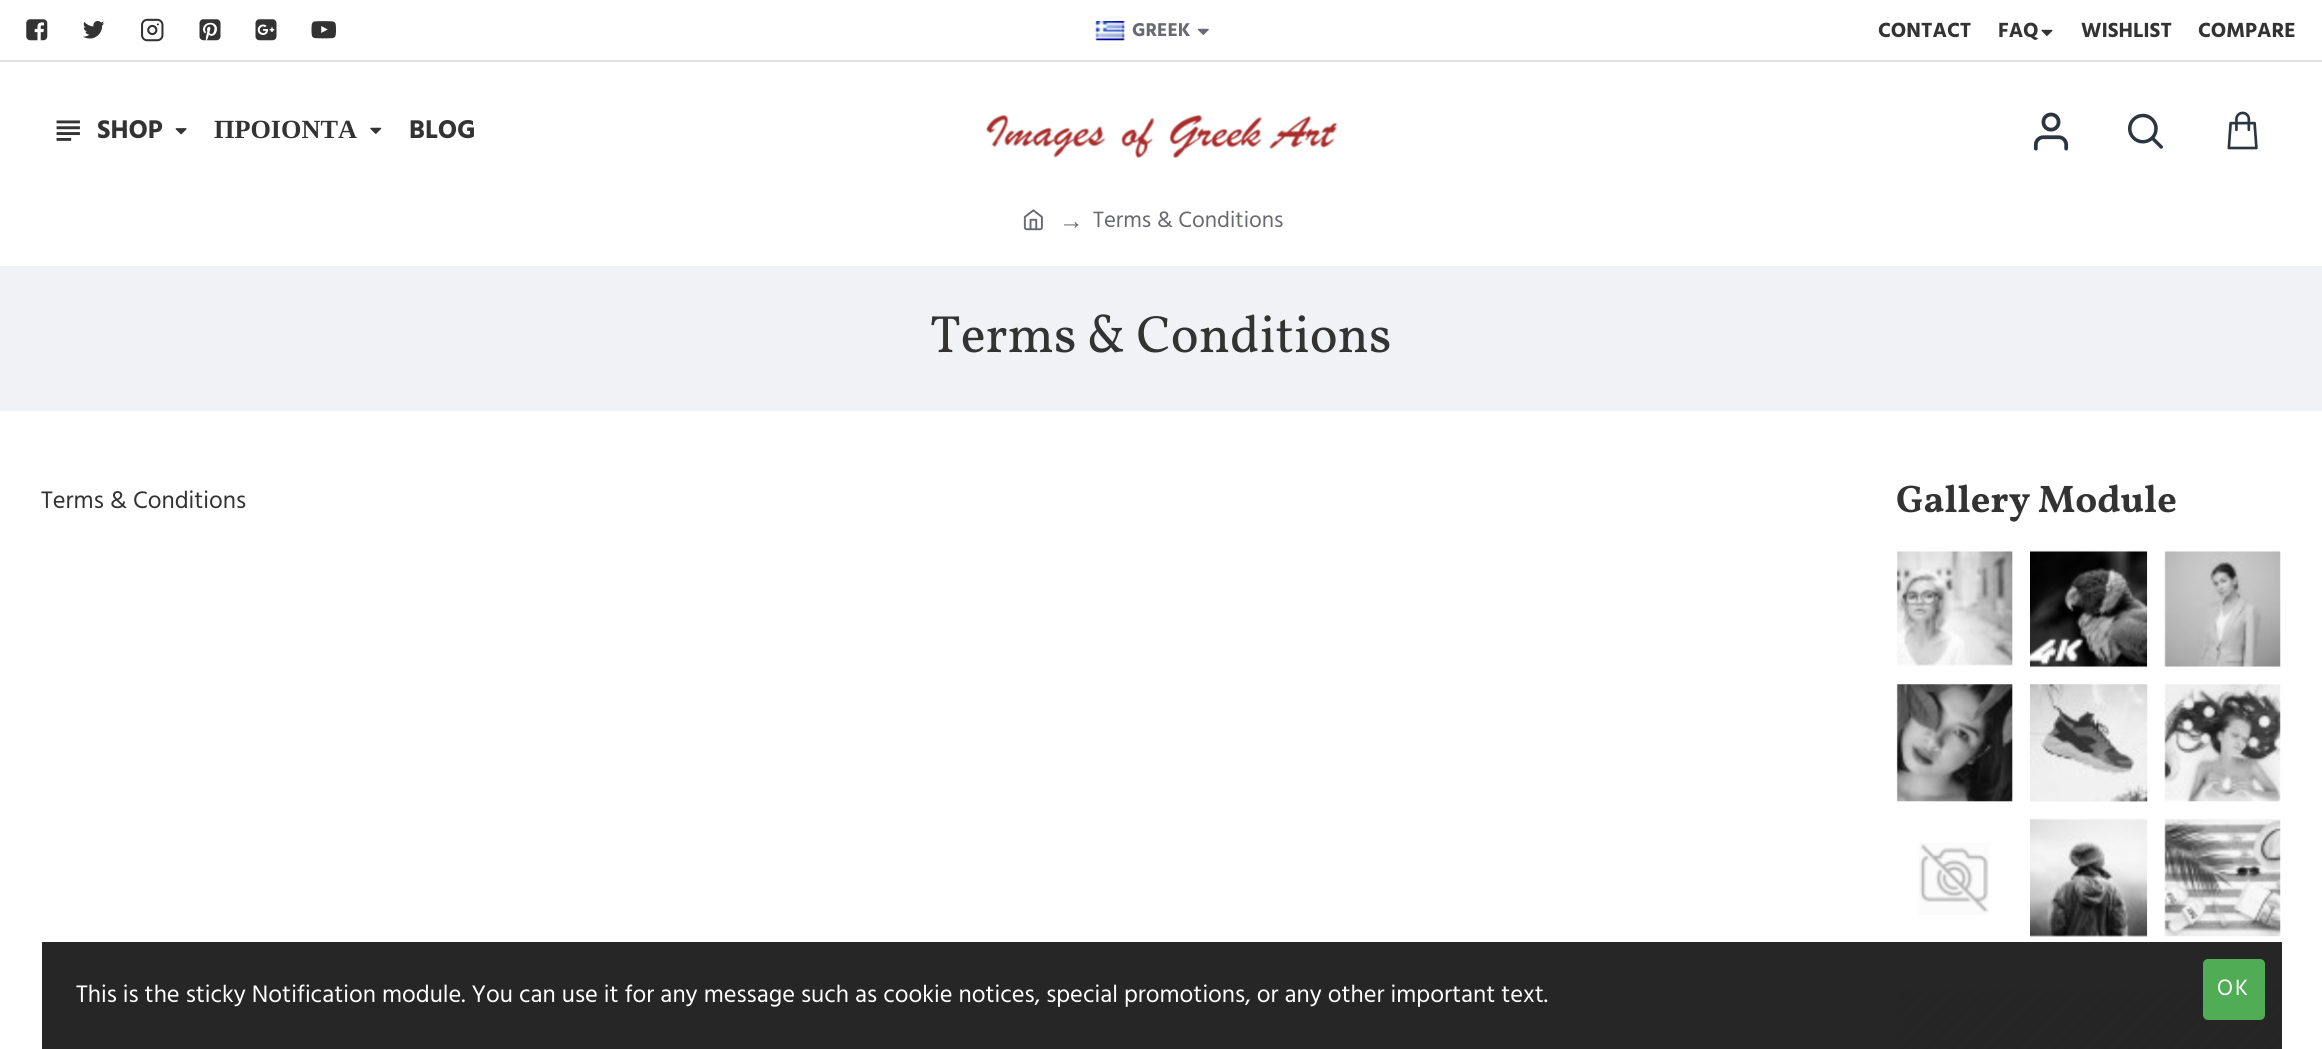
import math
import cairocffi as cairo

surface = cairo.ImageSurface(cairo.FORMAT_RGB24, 2322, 1049)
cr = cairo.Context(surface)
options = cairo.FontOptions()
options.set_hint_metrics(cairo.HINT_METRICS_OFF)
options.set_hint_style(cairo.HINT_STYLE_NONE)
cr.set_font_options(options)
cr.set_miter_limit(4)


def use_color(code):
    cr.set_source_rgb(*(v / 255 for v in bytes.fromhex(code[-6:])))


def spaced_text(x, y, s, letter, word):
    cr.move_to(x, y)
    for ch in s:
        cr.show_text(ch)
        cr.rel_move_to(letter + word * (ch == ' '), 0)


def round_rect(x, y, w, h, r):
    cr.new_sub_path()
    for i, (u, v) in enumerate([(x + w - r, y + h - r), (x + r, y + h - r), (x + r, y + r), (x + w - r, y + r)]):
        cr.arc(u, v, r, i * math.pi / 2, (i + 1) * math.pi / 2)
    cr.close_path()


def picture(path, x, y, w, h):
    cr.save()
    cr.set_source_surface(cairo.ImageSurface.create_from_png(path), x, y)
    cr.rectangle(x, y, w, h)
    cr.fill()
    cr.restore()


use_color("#ffffff")
cr.paint()
use_color("#262626")
cr.rectangle(42, 942, 2240, 107)
cr.fill()
picture("img1.png", 26, 19, 22, 22)
picture("img2.png", 83, 21, 22, 18)
picture("img3.png", 141, 18, 23, 24)
picture("img4.png", 199, 19, 22, 22)
picture("img5.png", 255, 19, 22, 22)
picture("img6.png", 311, 21, 25, 18)
picture("img7.png", 1095, 21, 30, 20)
cr.select_font_face("Hind Madurai", cairo.FONT_SLANT_NORMAL, cairo.FONT_WEIGHT_BOLD)
cr.set_font_size(19)
use_color("#696973")
cr.move_to(1132, 36)
cr.show_text("GREEK")
picture("img8.png", 1197, 28, 12, 7)
cr.set_font_size(21)
use_color("#333333")
cr.move_to(1878, 37)
cr.show_text("CONTACT")
cr.move_to(1998, 37)
cr.show_text("FAQ")
picture("img9.png", 2041, 29, 12, 7)
cr.move_to(2081, 37)
cr.show_text("WISHLIST")
cr.move_to(2198, 37)
cr.show_text("COMPARE")
picture("img10.png", 56, 120, 24, 21)
cr.set_font_size(26.25)
cr.move_to(97, 138)
cr.show_text("SHOP")
picture("img11.png", 175, 128, 12, 7)
cr.select_font_face("Liberation Serif", cairo.FONT_SLANT_NORMAL, cairo.FONT_WEIGHT_BOLD)
cr.move_to(214, 138)
cr.show_text("ΠΡΟΙΟΝΤΑ")
picture("img12.png", 370, 127, 12, 7)
cr.select_font_face("Hind Madurai", cairo.FONT_SLANT_NORMAL, cairo.FONT_WEIGHT_BOLD)
cr.move_to(409, 138)
cr.show_text("BLOG")
picture("img13.png", 986, 115, 352, 43)
picture("img14.png", 2033, 112, 36, 39)
picture("img15.png", 2128, 113, 35, 36)
picture("img16.png", 2227, 111, 31, 39)
use_color("#e2e2e2")
cr.rectangle(0, 60, 2322, 2)
cr.fill()
picture("img17.png", 1023, 209, 20, 22)
cr.select_font_face("Liberation Serif")
cr.set_font_size(24.5)
use_color("#696973")
cr.move_to(1059, 229)
cr.show_text("→")
cr.select_font_face("Hind Madurai")
cr.set_font_size(22.75)
cr.move_to(1093, 227)
cr.show_text("Terms & Conditions")
use_color("#f0f2f5")
cr.rectangle(0, 266, 2322, 145)
cr.fill()
cr.select_font_face("Vollkorn")
cr.set_font_size(52.5)
use_color("#333333")
cr.move_to(930, 352)
cr.show_text("Terms & Conditions")
cr.select_font_face("Hind Madurai")
cr.set_font_size(24.5)
cr.move_to(41, 508)
cr.show_text("Terms & Conditions")
cr.select_font_face("Vollkorn", cairo.FONT_SLANT_NORMAL, cairo.FONT_WEIGHT_BOLD)
cr.set_font_size(38.5)
cr.move_to(1896, 512)
cr.show_text("Gallery Module")
picture("img18.png", 1896, 551, 117, 116)
picture("img19.png", 2030, 550, 118, 118)
picture("img20.png", 2164, 551, 117, 116)
picture("img21.png", 1896, 684, 117, 118)
picture("img22.png", 2030, 684, 118, 118)
picture("img23.png", 2164, 684, 117, 118)
picture("img24.png", 1919, 843, 70, 72)
picture("img25.png", 2030, 818, 118, 119)
picture("img26.png", 2164, 819, 117, 118)
picture("img27.png", 1897, 989, 383, 60)
cr.select_font_face("Hind Madurai")
cr.set_font_size(24.5)
use_color("#ffffff")
cr.move_to(76, 1002)
cr.show_text("This is the sticky Notification module. You can use it for any message such as cookie notices, special promotions, or any other important text.")
use_color("#50ad55")
round_rect(2203, 959, 62, 61, 5)
cr.fill()
cr.set_font_size(22.75)
use_color("#ffffff")
spaced_text(2217, 995, "OK", 2, 0)
surface.write_to_png("result.png")
